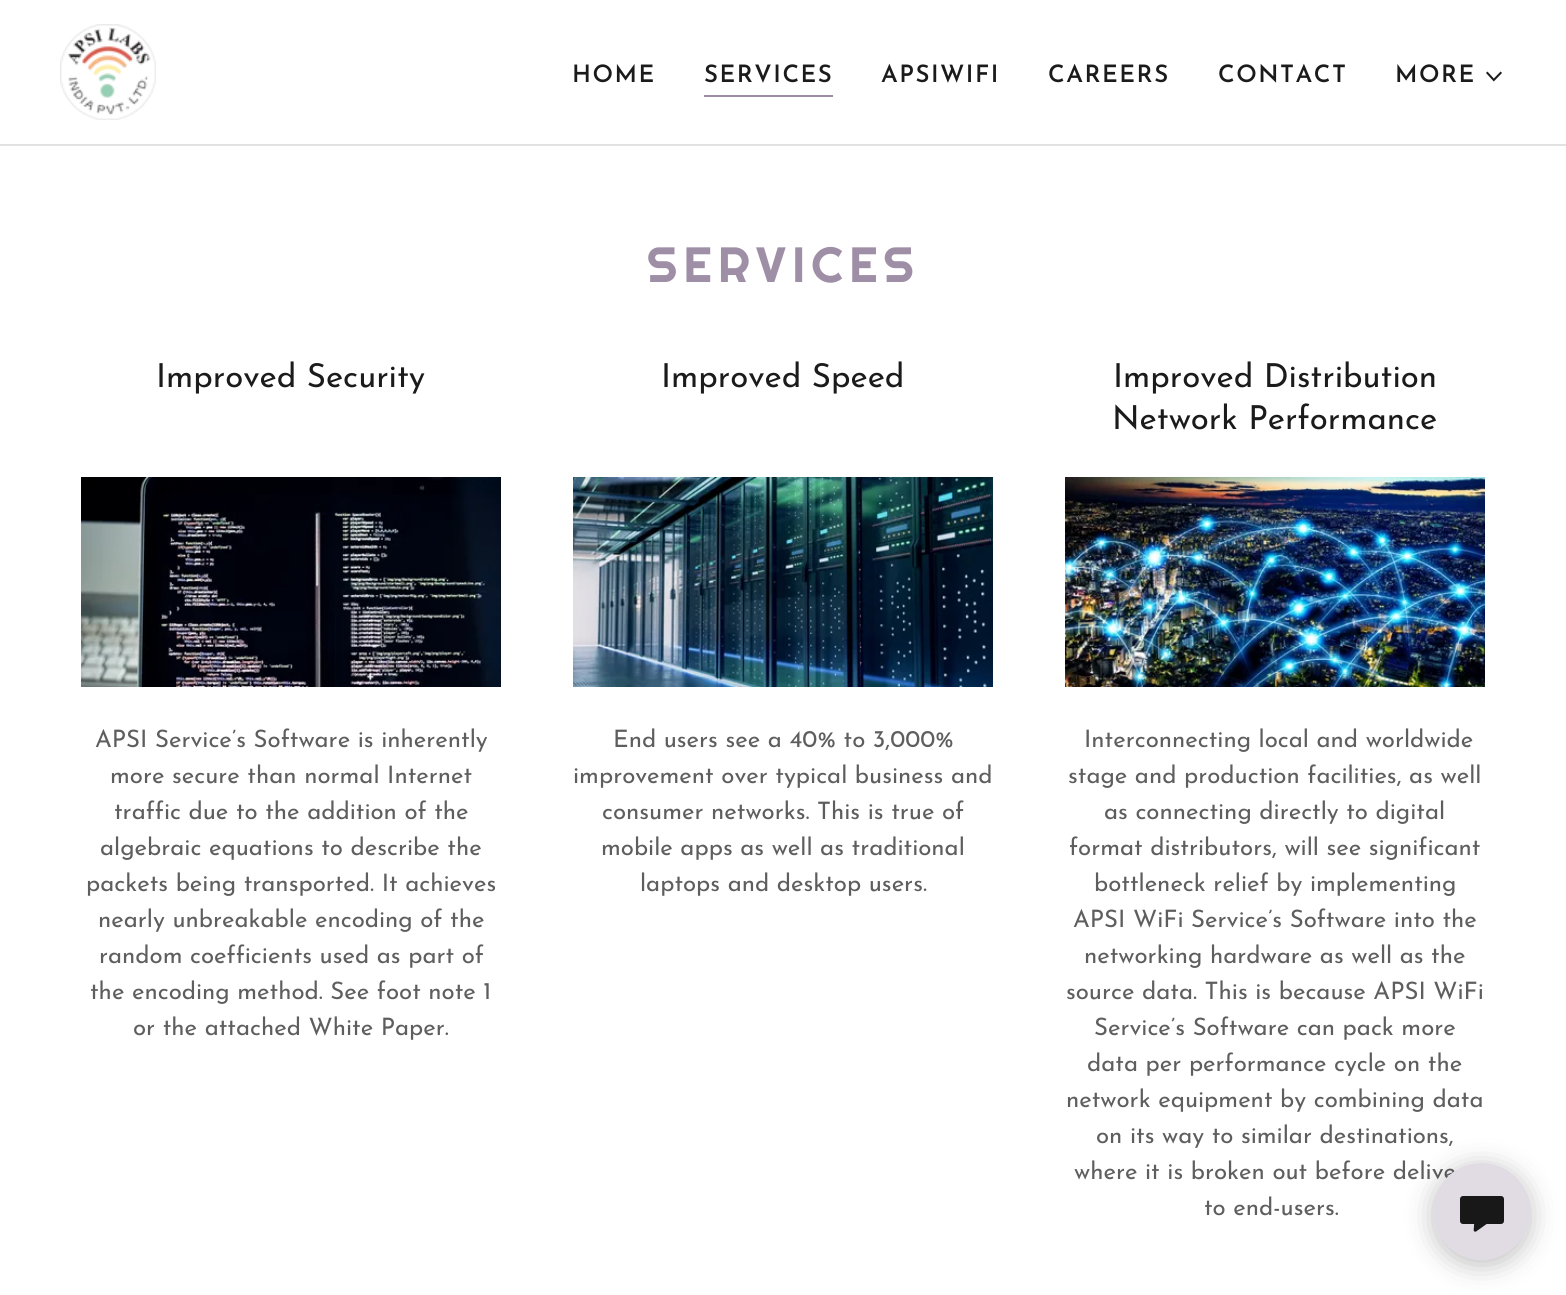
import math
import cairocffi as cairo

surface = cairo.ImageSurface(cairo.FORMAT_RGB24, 1566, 1295)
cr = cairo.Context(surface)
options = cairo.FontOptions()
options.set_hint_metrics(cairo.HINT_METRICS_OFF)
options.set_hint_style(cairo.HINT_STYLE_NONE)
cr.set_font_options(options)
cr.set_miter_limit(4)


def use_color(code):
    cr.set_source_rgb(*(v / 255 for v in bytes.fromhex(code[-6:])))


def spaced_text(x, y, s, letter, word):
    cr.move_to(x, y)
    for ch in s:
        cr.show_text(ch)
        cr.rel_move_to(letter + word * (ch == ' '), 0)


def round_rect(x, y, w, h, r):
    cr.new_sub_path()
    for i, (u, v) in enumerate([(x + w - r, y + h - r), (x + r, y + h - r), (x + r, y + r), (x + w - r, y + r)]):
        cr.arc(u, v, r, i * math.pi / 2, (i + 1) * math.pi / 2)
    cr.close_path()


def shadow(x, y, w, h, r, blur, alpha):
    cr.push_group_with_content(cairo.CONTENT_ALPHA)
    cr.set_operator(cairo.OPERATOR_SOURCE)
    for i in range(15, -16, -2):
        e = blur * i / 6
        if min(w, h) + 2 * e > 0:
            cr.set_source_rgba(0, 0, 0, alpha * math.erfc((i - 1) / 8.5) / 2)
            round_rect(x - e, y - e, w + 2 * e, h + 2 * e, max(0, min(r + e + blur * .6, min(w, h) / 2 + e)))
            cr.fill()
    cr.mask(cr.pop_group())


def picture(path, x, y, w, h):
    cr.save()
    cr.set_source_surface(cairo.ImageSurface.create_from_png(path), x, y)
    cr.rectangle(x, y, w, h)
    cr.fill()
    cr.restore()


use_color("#ffffff")
cr.paint()
picture("img1.png", 60, 24, 96, 96)
cr.select_font_face("Josefin Sans SemiBold")
cr.set_font_size(24)
use_color("#1b1b1b")
spaced_text(572, 82, "HOME", 1.5, 0)
use_color("#9c8ba3")
cr.rectangle(704, 95, 129, 2)
cr.fill()
use_color("#1b1b1b")
spaced_text(704, 82, "SERVICES", 1.5, 0)
spaced_text(881, 82, "APSIWIFI", 1.5, 0)
spaced_text(1048, 82, "CAREERS", 1.5, 0)
spaced_text(1218, 82, "CONTACT", 1.5, 0)
spaced_text(1395, 82, "MORE", 1.5, 0)
picture("img2.png", 1486, 71, 16, 11)
use_color("#e2e2e2")
cr.rectangle(0, 144, 1566, 2)
cr.fill()
cr.select_font_face("Righteous")
cr.set_font_size(49.5)
use_color("#9f8fa6")
spaced_text(647, 282, "SERVICES", 6, 0)
cr.select_font_face("Josefin Sans")
cr.set_font_size(33)
use_color("#1b1b1b")
cr.move_to(156, 387)
cr.show_text("Improved Security")
picture("img3.png", 81, 477, 420, 210)
cr.set_font_size(24)
use_color("#5e5e5e")
cr.move_to(95, 747)
cr.show_text("APSI Service’s Software is inherently")
cr.move_to(110, 783)
cr.show_text("more secure than normal Internet")
cr.move_to(114, 819)
cr.show_text("traffic due to the addition of the")
cr.move_to(100, 855)
cr.show_text("algebraic equations to describe the")
cr.move_to(86, 891)
cr.show_text("packets being transported. It achieves")
cr.move_to(98, 927)
cr.show_text("nearly unbreakable encoding of the")
cr.move_to(99, 963)
cr.show_text("random coefficients used as part of")
cr.move_to(90, 999)
cr.show_text("the encoding method. See foot note 1")
cr.move_to(133, 1035)
cr.show_text("or the attached White Paper.")
cr.set_font_size(33)
use_color("#1b1b1b")
cr.move_to(661, 387)
cr.show_text("Improved Speed")
picture("img4.png", 573, 477, 420, 210)
cr.set_font_size(24)
use_color("#5e5e5e")
cr.move_to(613, 747)
cr.show_text("End users see a 40% to 3,000%")
cr.move_to(573, 783)
cr.show_text("improvement over typical business and")
cr.move_to(602, 819)
cr.show_text("consumer networks. This is true of")
cr.move_to(601, 855)
cr.show_text("mobile apps as well as traditional")
cr.move_to(640, 891)
cr.show_text("laptops and desktop users.")
cr.set_font_size(33)
use_color("#1b1b1b")
cr.move_to(1113, 387)
cr.show_text("Improved Distribution")
cr.move_to(1112, 429)
cr.show_text("Network Performance")
picture("img5.png", 1065, 477, 420, 210)
cr.set_font_size(24)
use_color("#5e5e5e")
cr.move_to(1084, 747)
cr.show_text("Interconnecting local and worldwide")
cr.move_to(1068, 783)
cr.show_text("stage and production facilities, as well")
cr.move_to(1104, 819)
cr.show_text("as connecting directly to digital")
cr.move_to(1069, 855)
cr.show_text("format distributors, will see significant")
cr.move_to(1094, 891)
cr.show_text("bottleneck relief by implementing")
cr.move_to(1073, 927)
cr.show_text("APSI WiFi Service’s Software into the")
cr.move_to(1084, 963)
cr.show_text("networking hardware as well as the")
cr.move_to(1066, 999)
cr.show_text("source data. This is because APSI WiFi")
cr.move_to(1094, 1035)
cr.show_text("Service’s Software can pack more")
cr.move_to(1087, 1071)
cr.show_text("data per performance cycle on the")
cr.move_to(1066, 1107)
cr.show_text("network equipment by combining data")
cr.move_to(1096, 1143)
cr.show_text("on its way to similar destinations,")
cr.move_to(1074, 1179)
cr.show_text("where it is broken out before delive")
cr.move_to(1204, 1215)
cr.show_text("to end-users.")
use_color("#000000")
shadow(1433, 1167, 97, 98, 48.5, 13.5, 0.25)
use_color("#e1dce3")
cr.arc(1481.5, 1211.5, 48.5, 0, 2 * math.pi)
cr.fill()
picture("img6.png", 1460, 1196, 44, 36)
surface.write_to_png("result.png")
